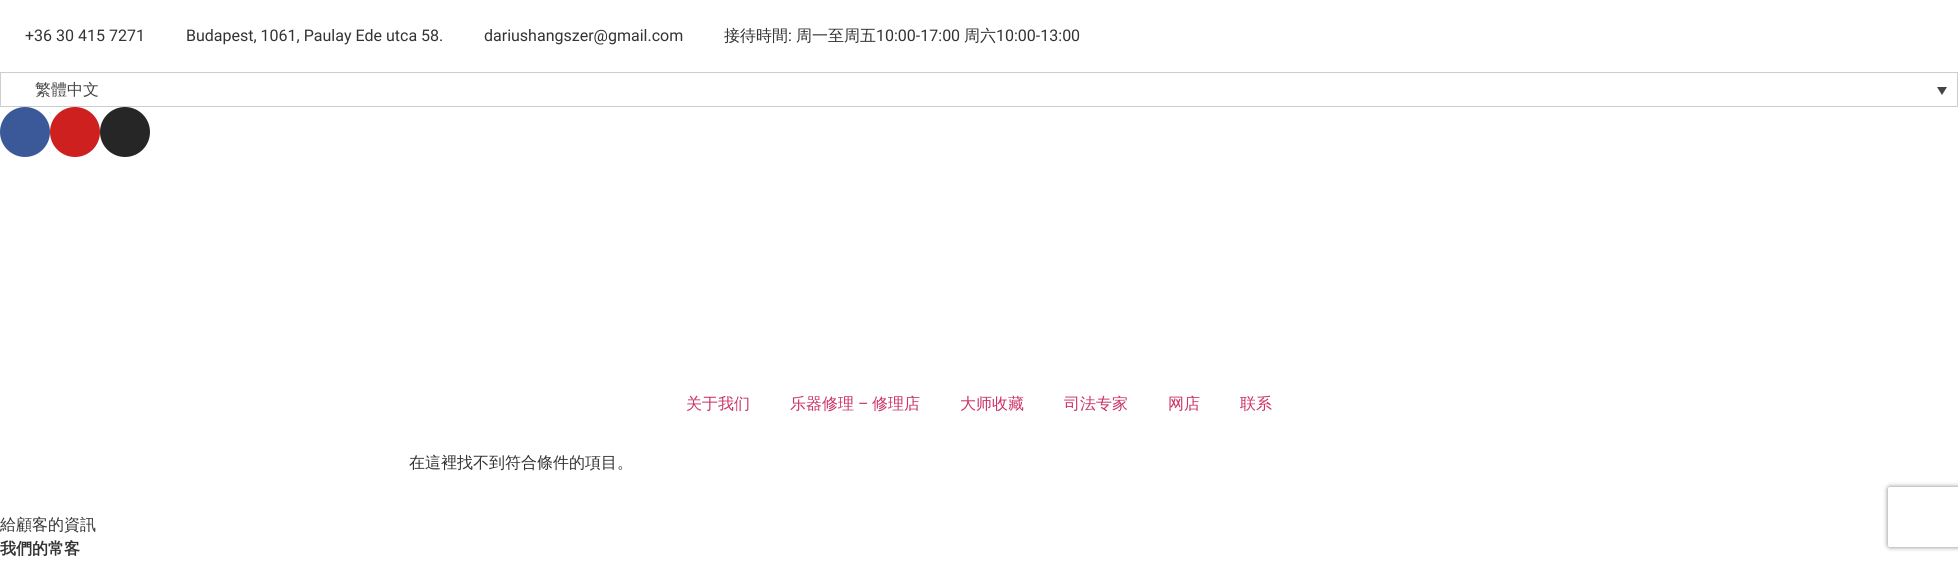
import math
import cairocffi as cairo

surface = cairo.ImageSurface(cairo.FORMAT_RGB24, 1958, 561)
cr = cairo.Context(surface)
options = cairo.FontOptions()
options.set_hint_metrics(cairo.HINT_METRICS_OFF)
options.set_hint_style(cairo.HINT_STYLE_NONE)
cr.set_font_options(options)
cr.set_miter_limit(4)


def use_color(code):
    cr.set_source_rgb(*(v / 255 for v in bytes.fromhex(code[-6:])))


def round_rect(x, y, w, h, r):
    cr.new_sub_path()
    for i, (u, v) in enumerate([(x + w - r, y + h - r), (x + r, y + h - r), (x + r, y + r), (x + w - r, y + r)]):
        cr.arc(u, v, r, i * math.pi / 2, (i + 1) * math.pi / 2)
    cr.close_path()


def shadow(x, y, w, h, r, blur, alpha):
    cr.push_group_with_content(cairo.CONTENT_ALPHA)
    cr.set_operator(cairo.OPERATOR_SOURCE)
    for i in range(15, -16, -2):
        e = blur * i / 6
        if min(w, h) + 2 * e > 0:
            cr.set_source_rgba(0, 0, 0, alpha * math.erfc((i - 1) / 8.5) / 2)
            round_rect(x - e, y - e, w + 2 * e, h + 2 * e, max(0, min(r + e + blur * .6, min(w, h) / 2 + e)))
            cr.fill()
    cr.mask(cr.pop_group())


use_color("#ffffff")
cr.paint()
cr.select_font_face("Roboto")
cr.set_font_size(16)
use_color("#333333")
cr.move_to(25, 41)
cr.show_text("+36 30 415 7271")
cr.move_to(186, 41)
cr.show_text("Budapest, 1061, Paulay Ede utca 58.")
cr.move_to(484, 41)
cr.show_text("dariushangszer@gmail.com")
cr.select_font_face("WenQuanYi Zen Hei Medium")
cr.move_to(724, 41)
cr.show_text("接待時間")
cr.select_font_face("Roboto")
cr.move_to(788, 41)
cr.show_text(":")
cr.select_font_face("WenQuanYi Zen Hei Medium")
cr.move_to(796, 41)
cr.show_text("周一至周五")
cr.select_font_face("Roboto")
cr.move_to(876, 41)
cr.show_text("10:00-17:00")
cr.select_font_face("WenQuanYi Zen Hei Medium")
cr.move_to(964, 41)
cr.show_text("周六")
cr.select_font_face("Roboto")
cr.move_to(996, 41)
cr.show_text("10:00-13:00")
cr.rectangle(0.5, 72.5, 1957, 34)
use_color("#cdcdcd")
cr.set_line_width(1)
cr.stroke()
cr.select_font_face("WenQuanYi Zen Hei Medium")
use_color("#444444")
cr.move_to(35, 95)
cr.show_text("繁體中文")
cr.new_path()
cr.move_to(1937, 87)
cr.line_to(1947, 87)
cr.line_to(1942, 95)
cr.close_path()
cr.fill()
use_color("#3b5998")
cr.arc(25, 132, 25, 0, 2 * math.pi)
cr.fill()
use_color("#cd201f")
cr.arc(75, 132, 25, 0, 2 * math.pi)
cr.fill()
use_color("#262626")
cr.arc(125, 132, 25, 0, 2 * math.pi)
cr.fill()
use_color("#cc3366")
cr.move_to(686, 409)
cr.show_text("关于我们")
cr.move_to(790, 409)
cr.show_text("乐器修理")
cr.select_font_face("Roboto")
cr.move_to(858, 409)
cr.show_text("–")
cr.select_font_face("WenQuanYi Zen Hei Medium")
cr.move_to(872, 409)
cr.show_text("修理店")
cr.move_to(960, 409)
cr.show_text("大师收藏")
cr.move_to(1064, 409)
cr.show_text("司法专家")
cr.move_to(1168, 409)
cr.show_text("网店")
cr.move_to(1240, 409)
cr.show_text("联系")
use_color("#333333")
cr.move_to(409, 468)
cr.show_text("在這裡找不到符合條件的項目。")
cr.move_to(0, 530)
cr.show_text("給顧客的資訊")
cr.select_font_face("WenQuanYi Zen Hei", cairo.FONT_SLANT_NORMAL, cairo.FONT_WEIGHT_BOLD)
cr.move_to(0, 554)
cr.show_text("我們的常客")
cr.save()
cr.set_fill_rule(cairo.FILL_RULE_EVEN_ODD)
cr.new_path()
cr.move_to(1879, 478)
cr.line_to(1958, 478)
cr.line_to(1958, 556)
cr.line_to(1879, 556)
cr.close_path()
cr.move_to(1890, 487)
cr.line_to(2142, 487)
cr.curve_to(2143, 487, 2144, 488, 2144, 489)
cr.line_to(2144, 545)
cr.curve_to(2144, 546, 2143, 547, 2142, 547)
cr.line_to(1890, 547)
cr.curve_to(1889, 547, 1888, 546, 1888, 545)
cr.line_to(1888, 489)
cr.curve_to(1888, 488, 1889, 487, 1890, 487)
cr.close_path()
cr.clip()
use_color("#808080")
shadow(1888, 487, 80, 60, 2, 2.5, 1)
cr.restore()
surface.write_to_png("result.png")
